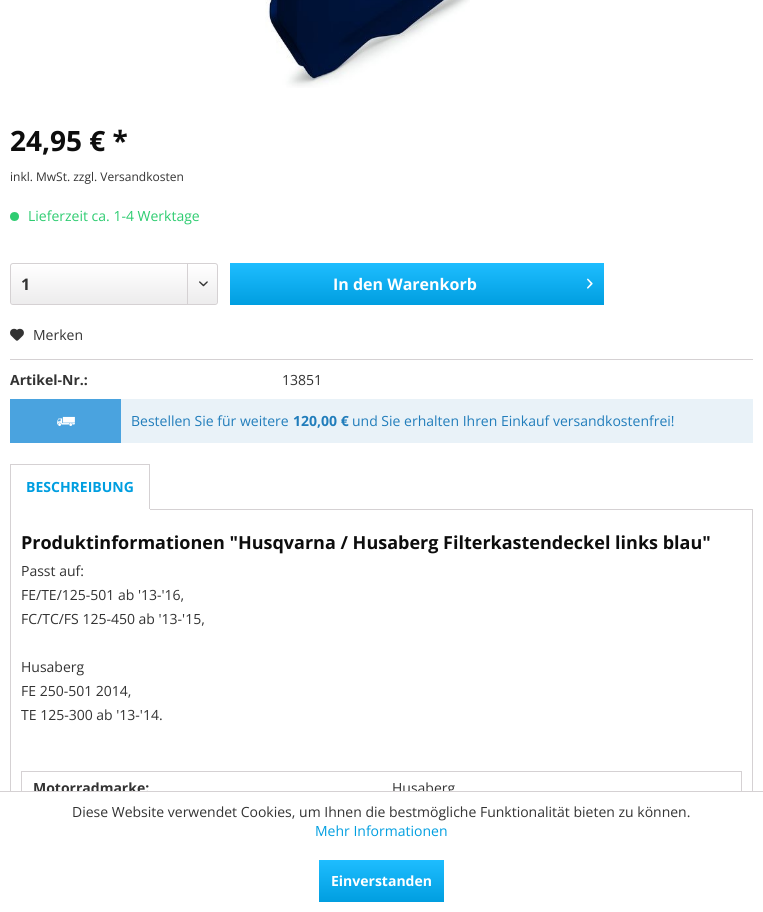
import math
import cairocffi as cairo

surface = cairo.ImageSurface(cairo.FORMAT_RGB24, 763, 912)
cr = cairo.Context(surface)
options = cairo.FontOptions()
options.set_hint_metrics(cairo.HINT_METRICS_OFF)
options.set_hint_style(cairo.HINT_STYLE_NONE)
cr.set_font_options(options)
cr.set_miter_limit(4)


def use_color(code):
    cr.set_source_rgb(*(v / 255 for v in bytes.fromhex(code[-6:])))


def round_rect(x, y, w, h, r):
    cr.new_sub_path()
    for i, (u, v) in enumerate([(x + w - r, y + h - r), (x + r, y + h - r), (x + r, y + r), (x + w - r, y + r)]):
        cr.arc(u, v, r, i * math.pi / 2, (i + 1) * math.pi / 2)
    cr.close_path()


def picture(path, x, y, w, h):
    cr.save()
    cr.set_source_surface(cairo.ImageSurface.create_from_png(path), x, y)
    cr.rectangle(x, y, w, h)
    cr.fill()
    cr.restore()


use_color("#ffffff")
cr.paint()
picture("img1.png", 265, 0, 205, 88)
cr.select_font_face("Open Sans", cairo.FONT_SLANT_NORMAL, cairo.FONT_WEIGHT_BOLD)
cr.set_font_size(28)
use_color("#0d0d0d")
cr.move_to(10, 151)
cr.show_text("24,95 € *")
cr.select_font_face("Open Sans")
cr.set_font_size(12)
use_color("#333333")
cr.move_to(10, 181)
cr.show_text("inkl. MwSt. zzgl. Versandkosten")
use_color("#2ecc71")
cr.new_path()
cr.arc(14.5, 216.5, 4.5, 0, 2 * math.pi)
cr.fill()
cr.set_font_size(14)
cr.move_to(28, 221)
cr.show_text("Lieferzeit ca. 1-4 Werktage")
gradient = cairo.LinearGradient(114, 264, 114, 304)
gradient.add_color_stop_rgba(0, 1, 1, 1, 1)
gradient.add_color_stop_rgba(1, 0.929, 0.925, 0.929, 1)
cr.set_source(gradient)
round_rect(11, 264, 206, 40, 2)
cr.fill()
round_rect(10.5, 263.5, 207, 41, 2.5)
use_color("#d5d1d3")
cr.set_line_width(1)
cr.stroke()
cr.select_font_face("Open Sans", cairo.FONT_SLANT_NORMAL, cairo.FONT_WEIGHT_BOLD)
cr.set_font_size(16)
use_color("#333333")
cr.move_to(21, 290)
cr.show_text("1")
use_color("#d5d1d3")
cr.rectangle(187, 264, 1, 40)
cr.fill()
picture("img2.png", 199, 281, 9, 6)
gradient = cairo.LinearGradient(417, 263, 417, 305)
gradient.add_color_stop_rgba(0, 0.118, 0.741, 1, 1)
gradient.add_color_stop_rgba(1, 0, 0.62, 0.878, 1)
cr.set_source(gradient)
cr.rectangle(230, 263, 374, 42)
cr.fill()
use_color("#ffffff")
cr.move_to(333, 290)
cr.show_text("In den Warenkorb")
picture("img3.png", 587, 278, 6, 11)
use_color("#d5d1d3")
cr.rectangle(10, 359, 743, 1)
cr.fill()
picture("img4.png", 10, 328, 14, 13)
cr.select_font_face("Open Sans")
cr.set_font_size(14)
use_color("#333333")
cr.move_to(33, 340)
cr.show_text("Merken")
cr.select_font_face("Open Sans", cairo.FONT_SLANT_NORMAL, cairo.FONT_WEIGHT_BOLD)
cr.move_to(10, 385)
cr.show_text("Artikel-Nr.:")
cr.select_font_face("Open Sans")
cr.move_to(282, 385)
cr.show_text("13851")
use_color("#e9f2f8")
cr.rectangle(121, 399, 632, 44)
cr.fill()
use_color("#4aa3df")
cr.rectangle(10, 399, 111, 44)
cr.fill()
picture("img5.png", 57, 416, 18, 10)
use_color("#217dbb")
cr.move_to(131, 426)
cr.show_text("Bestellen Sie für weitere")
cr.select_font_face("Open Sans", cairo.FONT_SLANT_NORMAL, cairo.FONT_WEIGHT_BOLD)
cr.move_to(293, 426)
cr.show_text("120,00 €")
cr.select_font_face("Open Sans")
cr.move_to(352, 426)
cr.show_text("und Sie erhalten Ihren Einkauf versandkostenfrei!")
use_color("#d5d1d3")
cr.rectangle(10, 464, 140, 1)
cr.fill()
cr.rectangle(10.5, 509.5, 742, 363)
cr.stroke()
cr.rectangle(149, 464, 1, 46)
cr.fill()
use_color("#ffffff")
cr.rectangle(10, 509, 140, 1)
cr.fill()
use_color("#d5d1d3")
cr.rectangle(10, 464, 1, 46)
cr.fill()
cr.select_font_face("Open Sans", cairo.FONT_SLANT_NORMAL, cairo.FONT_WEIGHT_BOLD)
use_color("#009ee0")
cr.move_to(26, 492)
cr.show_text("BESCHREIBUNG")
cr.set_font_size(18)
use_color("#0d0d0d")
cr.move_to(21, 549)
cr.show_text("Produktinformationen \"Husqvarna / Husaberg Filterkastendeckel links blau\"")
cr.select_font_face("Open Sans")
cr.set_font_size(14)
use_color("#333333")
cr.move_to(21, 576)
cr.show_text("Passt auf:")
cr.move_to(21, 600)
cr.show_text("FE/TE/125-501 ab '13-'16,")
cr.move_to(21, 624)
cr.show_text("FC/TC/FS 125-450 ab '13-'15,")
cr.move_to(21, 672)
cr.show_text("Husaberg")
cr.move_to(21, 696)
cr.show_text("FE 250-501 2014,")
cr.move_to(21, 720)
cr.show_text("TE 125-300 ab '13-'14.")
cr.rectangle(21.5, 771.5, 720, 32)
use_color("#d5d1d3")
cr.stroke()
cr.select_font_face("Open Sans", cairo.FONT_SLANT_NORMAL, cairo.FONT_WEIGHT_BOLD)
use_color("#333333")
cr.move_to(33, 793)
cr.show_text("Motorradmarke:")
cr.select_font_face("Open Sans")
cr.move_to(392, 793)
cr.show_text("Husaberg")
use_color("#ffffff")
cr.rectangle(10, 792, 743, 81)
cr.fill()
use_color("#d5d1d3")
cr.rectangle(0, 791, 763, 1)
cr.fill()
use_color("#333333")
cr.move_to(72, 817)
cr.show_text("Diese Website verwendet Cookies, um Ihnen die bestmögliche Funktionalität bieten zu können.")
use_color("#009ee0")
cr.move_to(315, 836)
cr.show_text("Mehr Informationen")
gradient = cairo.LinearGradient(382, 860, 382, 902)
gradient.add_color_stop_rgba(0, 0.118, 0.741, 1, 1)
gradient.add_color_stop_rgba(1, 0, 0.62, 0.878, 1)
cr.set_source(gradient)
cr.rectangle(319, 860, 125, 42)
cr.fill()
cr.select_font_face("Open Sans", cairo.FONT_SLANT_NORMAL, cairo.FONT_WEIGHT_BOLD)
use_color("#ffffff")
cr.move_to(331, 886)
cr.show_text("Einverstanden")
surface.write_to_png("result.png")
